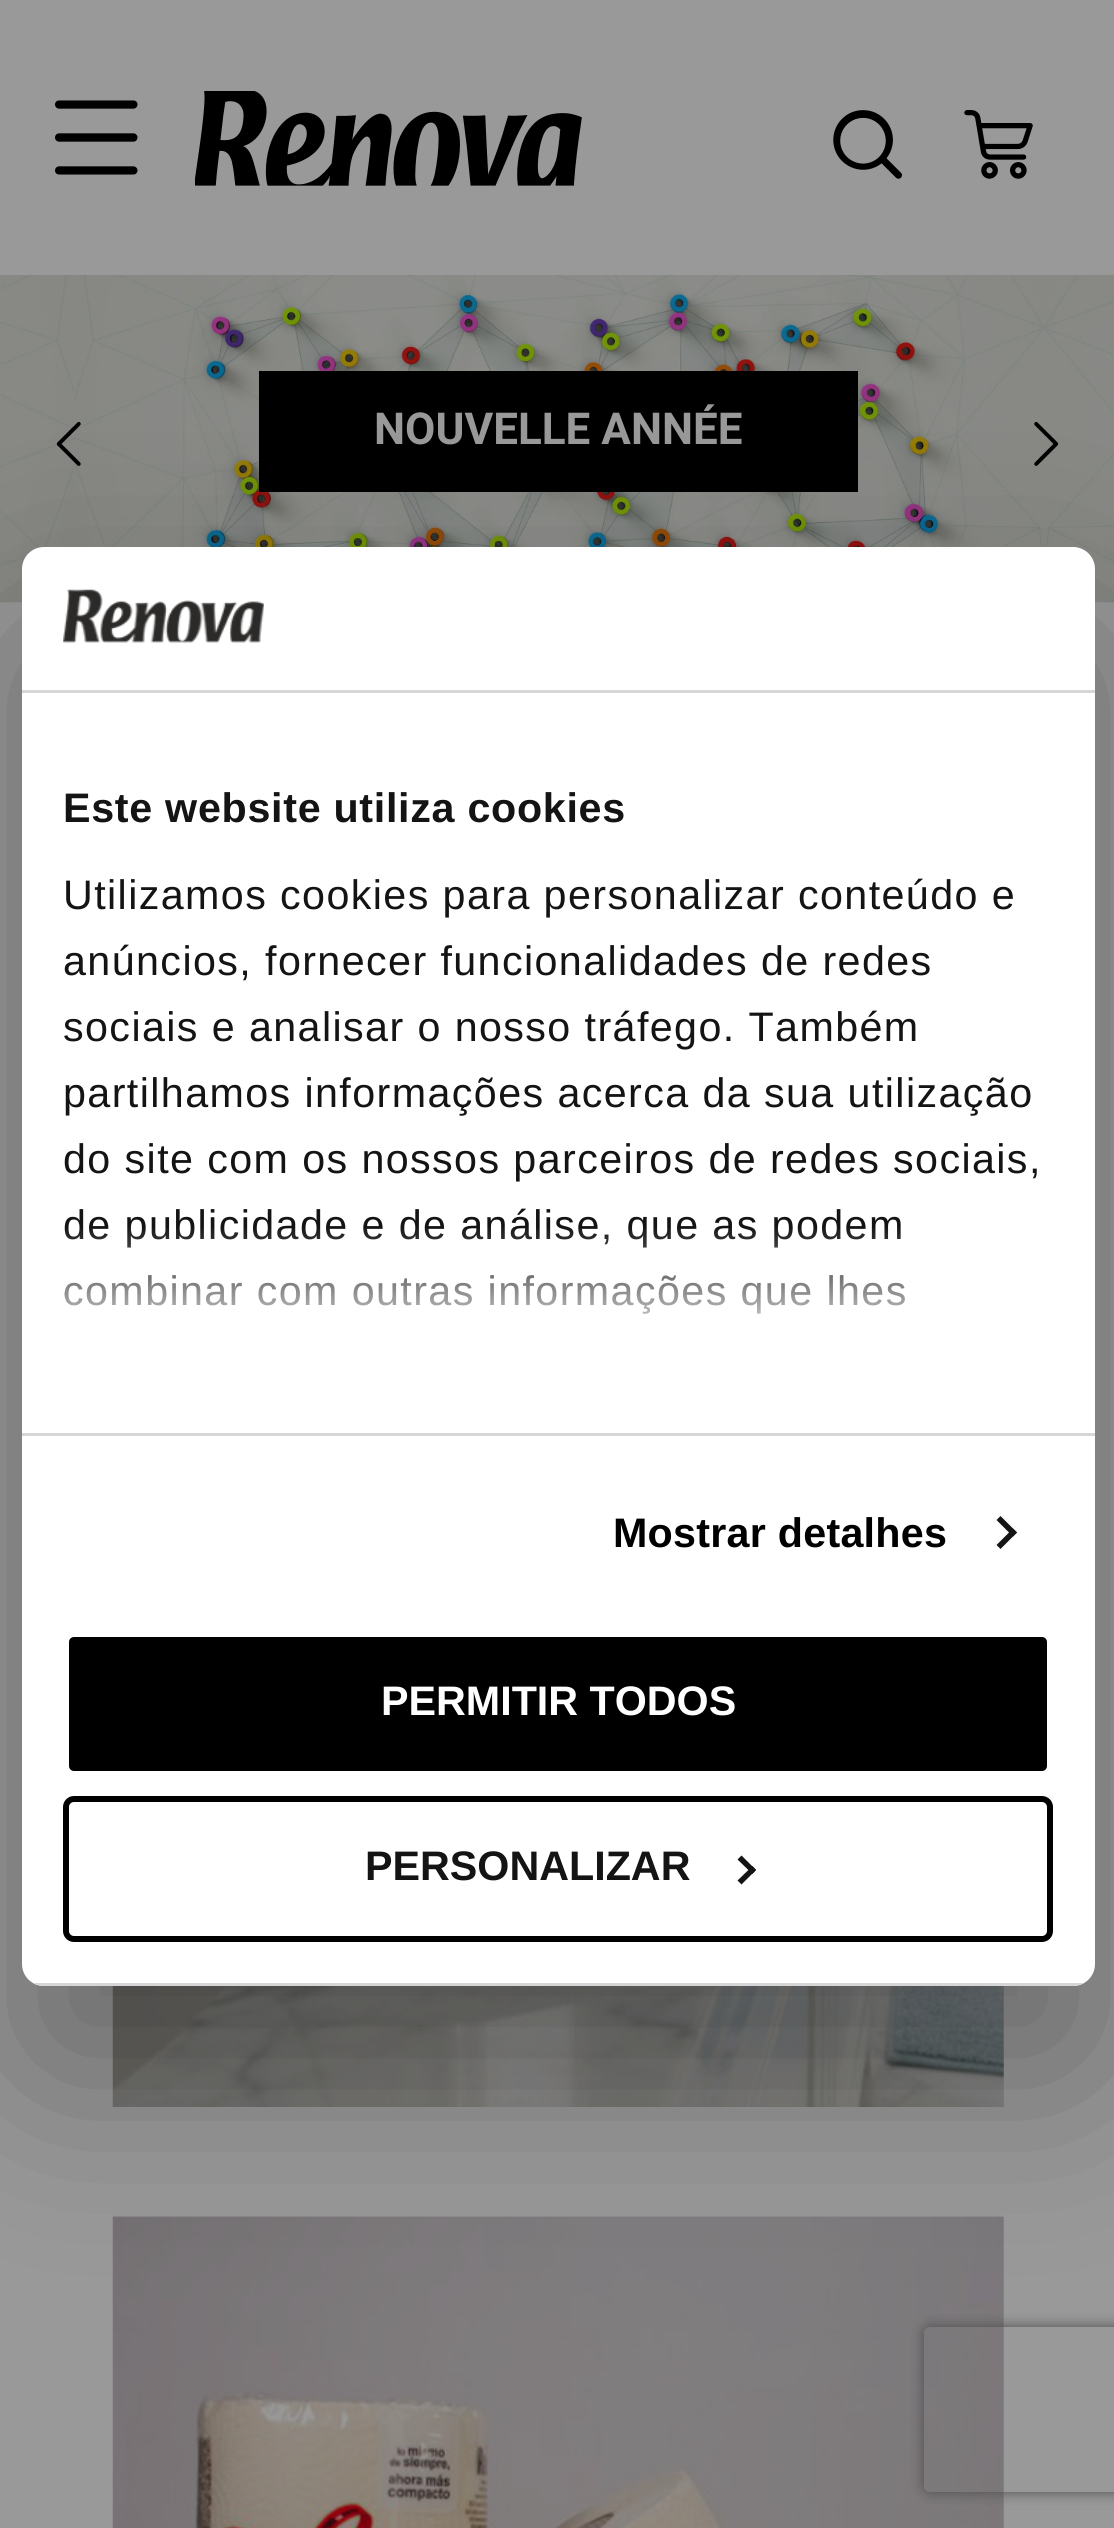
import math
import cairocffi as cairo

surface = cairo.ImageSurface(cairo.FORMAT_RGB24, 1114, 2528)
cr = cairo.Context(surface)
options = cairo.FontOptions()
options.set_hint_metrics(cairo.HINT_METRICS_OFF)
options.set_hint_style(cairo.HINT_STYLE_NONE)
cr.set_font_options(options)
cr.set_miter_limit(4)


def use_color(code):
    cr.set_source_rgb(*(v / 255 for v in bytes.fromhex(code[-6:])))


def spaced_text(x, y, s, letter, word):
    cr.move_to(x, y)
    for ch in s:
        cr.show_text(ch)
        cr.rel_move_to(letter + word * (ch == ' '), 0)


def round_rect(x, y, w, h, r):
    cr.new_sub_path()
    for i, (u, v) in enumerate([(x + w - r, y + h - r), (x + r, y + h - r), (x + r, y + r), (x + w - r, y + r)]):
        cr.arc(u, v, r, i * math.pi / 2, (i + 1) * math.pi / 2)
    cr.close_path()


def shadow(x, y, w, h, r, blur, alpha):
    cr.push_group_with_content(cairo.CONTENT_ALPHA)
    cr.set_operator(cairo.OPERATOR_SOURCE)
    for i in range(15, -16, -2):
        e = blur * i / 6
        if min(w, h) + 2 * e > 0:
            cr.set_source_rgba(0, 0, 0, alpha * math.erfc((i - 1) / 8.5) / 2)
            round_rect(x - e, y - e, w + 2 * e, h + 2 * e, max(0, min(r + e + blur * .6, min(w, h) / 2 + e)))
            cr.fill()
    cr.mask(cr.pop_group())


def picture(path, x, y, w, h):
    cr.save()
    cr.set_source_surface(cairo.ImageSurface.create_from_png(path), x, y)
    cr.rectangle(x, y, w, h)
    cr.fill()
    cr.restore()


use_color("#999999")
cr.paint()
picture("img1.png", 195, 91, 387, 95)
picture("img2.png", 55, 100, 83, 75)
picture("img3.png", 833, 110, 69, 69)
picture("img4.png", 964, 110, 69, 69)
picture("img6.png", 0, 275, 1114, 328)
picture("img5.png", 56, 421, 25, 45)
use_color("#000000")
cr.rectangle(259, 371, 599, 121)
cr.fill()
cr.select_font_face("Roboto", cairo.FONT_SLANT_NORMAL, cairo.FONT_WEIGHT_BOLD)
cr.set_font_size(44)
use_color("#999999")
cr.move_to(374, 444)
cr.show_text("NOUVELLE ANNÉE")
picture("img7.png", 1034, 421, 25, 45)
picture("img8.png", 112, 1986, 892, 121)
picture("img9.png", 112, 2215, 892, 313)
cr.save()
cr.set_fill_rule(cairo.FILL_RULE_EVEN_ODD)
cr.new_path()
cr.move_to(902, 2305)
cr.line_to(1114, 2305)
cr.line_to(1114, 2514)
cr.line_to(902, 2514)
cr.close_path()
cr.move_to(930, 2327)
cr.line_to(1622, 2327)
cr.curve_to(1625.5, 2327, 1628, 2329.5, 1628, 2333)
cr.line_to(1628, 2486)
cr.curve_to(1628, 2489.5, 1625.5, 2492, 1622, 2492)
cr.line_to(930, 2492)
cr.curve_to(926.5, 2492, 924, 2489.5, 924, 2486)
cr.line_to(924, 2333)
cr.curve_to(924, 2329.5, 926.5, 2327, 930, 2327)
cr.close_path()
cr.clip()
use_color("#4d4d4d")
shadow(924, 2327, 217, 165, 6, 7, 1)
cr.restore()
use_color("#000000")
shadow(22, 635, 1073, 1439, 22, 93.5, 0.3)
use_color("#ffffff")
round_rect(22, 547, 1073, 1439, 22)
cr.fill()
use_color("#d6d6d6")
cr.rectangle(22, 690, 1073, 3)
cr.fill()
picture("img10.png", 63, 589, 201, 54)
cr.rectangle(22, 1433, 1073, 3)
cr.fill()
cr.select_font_face("Liberation Sans", cairo.FONT_SLANT_NORMAL, cairo.FONT_WEIGHT_BOLD)
cr.set_font_size(41.25)
use_color("#141414")
spaced_text(63, 822, "Este website utiliza cookies", 0.7, 0)
cr.select_font_face("Liberation Sans")
spaced_text(63, 909, "Utilizamos cookies para personalizar conteúdo e", 1.4, 0)
spaced_text(63, 975, "anúncios, fornecer funcionalidades de redes", 1.4, 0)
spaced_text(63, 1041, "sociais e analisar o nosso tráfego. Também", 1.4, 0)
spaced_text(63, 1107, "partilhamos informações acerca da sua utilização", 1.4, 0)
spaced_text(63, 1173, "do site com os nossos parceiros de redes sociais,", 1.4, 0)
spaced_text(63, 1239, "de publicidade e de análise, que as podem", 1.4, 0)
spaced_text(63, 1305, "combinar com outras informações que lhes", 1.4, 0)
gradient = cairo.LinearGradient(540, 1431, 540, 1225)
gradient.add_color_stop_rgba(0, 1, 1, 1, 1)
gradient.add_color_stop_rgba(0.5, 1, 1, 1, 0.8)
gradient.add_color_stop_rgba(1, 1, 1, 1, 0)
cr.set_source(gradient)
cr.rectangle(65, 1228, 840, 86)
cr.fill()
cr.select_font_face("Liberation Sans", cairo.FONT_SLANT_NORMAL, cairo.FONT_WEIGHT_BOLD)
use_color("#000000")
spaced_text(613, 1547, "Mostrar detalhes", 0.25, 0)
use_color("#141414")
cr.new_path()
cr.move_to(1000.5, 1516)
cr.line_to(1017, 1532.5)
cr.line_to(1013, 1536.5)
cr.line_to(996.5, 1520)
cr.close_path()
cr.fill()
cr.new_path()
cr.move_to(1013, 1528.5)
cr.line_to(1017, 1532.5)
cr.line_to(1000.5, 1549)
cr.line_to(996.5, 1545)
cr.close_path()
cr.fill()
cr.save()
round_rect(22, 547, 1073, 1439, 22)
cr.clip()
use_color("#d6d6d6")
cr.rectangle(33, 1983, 1051, 3)
cr.fill()
cr.restore()
use_color("#000000")
round_rect(66, 1634, 984, 140, 8)
cr.fill_preserve()
use_color("#ffffff")
cr.set_line_width(6)
cr.stroke()
cr.move_to(381, 1715)
cr.show_text("PERMITIR TODOS")
round_rect(66, 1799, 984, 140, 8)
use_color("#000000")
cr.stroke()
use_color("#141414")
cr.move_to(365, 1880)
cr.show_text("PERSONALIZAR")
cr.new_path()
cr.move_to(741.5, 1855.5)
cr.line_to(756, 1870)
cr.line_to(752.5, 1874)
cr.line_to(737.5, 1859.5)
cr.close_path()
cr.fill()
cr.new_path()
cr.move_to(752.5, 1866)
cr.line_to(756, 1870)
cr.line_to(741.5, 1884.5)
cr.line_to(737.5, 1880.5)
cr.close_path()
cr.fill()
surface.write_to_png("result.png")
